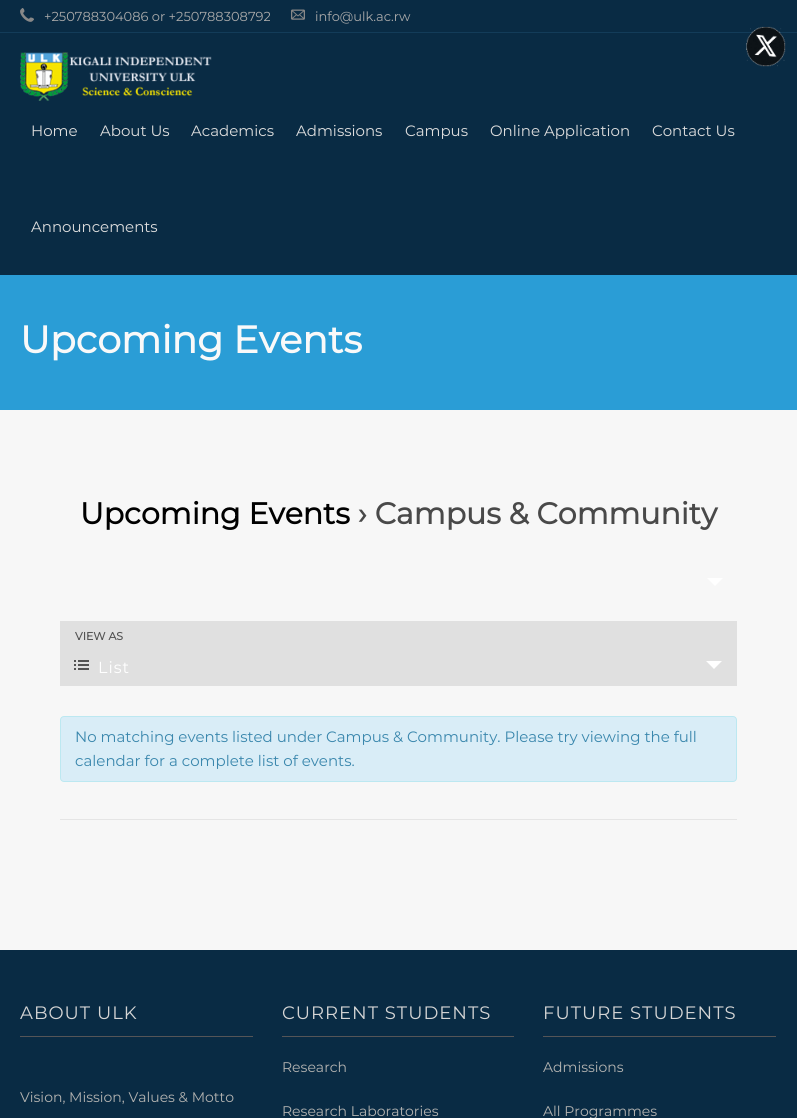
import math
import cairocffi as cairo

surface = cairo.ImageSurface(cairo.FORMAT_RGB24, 797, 1118)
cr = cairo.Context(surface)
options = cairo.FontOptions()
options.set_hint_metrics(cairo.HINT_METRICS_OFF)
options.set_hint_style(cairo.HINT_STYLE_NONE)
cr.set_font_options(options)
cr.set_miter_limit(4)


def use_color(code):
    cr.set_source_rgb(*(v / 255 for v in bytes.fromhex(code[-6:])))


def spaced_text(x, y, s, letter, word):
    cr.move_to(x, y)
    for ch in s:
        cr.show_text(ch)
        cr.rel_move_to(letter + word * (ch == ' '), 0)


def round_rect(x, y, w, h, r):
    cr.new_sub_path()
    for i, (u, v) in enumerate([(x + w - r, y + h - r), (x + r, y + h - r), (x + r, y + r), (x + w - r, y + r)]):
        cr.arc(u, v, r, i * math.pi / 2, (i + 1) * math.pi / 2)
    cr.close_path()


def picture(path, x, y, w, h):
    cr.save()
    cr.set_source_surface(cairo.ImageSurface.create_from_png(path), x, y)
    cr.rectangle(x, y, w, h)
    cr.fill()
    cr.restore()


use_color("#f7f7f7")
cr.paint()
use_color("#092b44")
cr.rectangle(0, 0, 797, 275)
cr.fill()
use_color("#133c59")
cr.rectangle(0, 32, 797, 1)
cr.fill()
picture("img1.png", 20, 8, 14, 14)
cr.select_font_face("Montserrat Thin")
cr.set_font_size(13)
use_color("#aaaaaa")
cr.move_to(44, 21)
cr.show_text("+250788304086 or +250788308792")
picture("img2.png", 291, 9, 14, 11)
cr.move_to(315, 21)
cr.show_text("info@ulk.ac.rw")
picture("img3.png", 20, 52, 192, 49)
cr.set_font_size(15)
use_color("#dddddd")
cr.move_to(31, 136)
cr.show_text("Home")
cr.move_to(100, 136)
cr.show_text("About Us")
cr.move_to(191, 136)
cr.show_text("Academics")
cr.move_to(296, 136)
cr.show_text("Admissions")
cr.move_to(405, 136)
cr.show_text("Campus")
cr.move_to(490, 136)
cr.show_text("Online Application")
cr.move_to(652, 136)
cr.show_text("Contact Us")
cr.move_to(31, 232)
cr.show_text("Announcements")
use_color("#2a9dd6")
cr.rectangle(0, 275, 797, 135)
cr.fill()
cr.select_font_face("Montserrat", cairo.FONT_SLANT_NORMAL, cairo.FONT_WEIGHT_BOLD)
cr.set_font_size(38)
use_color("#f9f9f9")
cr.move_to(20, 353)
cr.show_text("Upcoming Events")
cr.set_font_size(30)
use_color("#000000")
cr.move_to(80, 524)
cr.show_text("Upcoming Events")
use_color("#494949")
cr.move_to(358, 524)
cr.show_text("› Campus & Community")
use_color("#ffffff")
cr.new_path()
cr.move_to(707, 578)
cr.line_to(723, 578)
cr.line_to(715, 586)
cr.close_path()
cr.fill()
use_color("#e0e0e0")
cr.rectangle(60, 621, 677, 65)
cr.fill()
cr.set_font_size(11)
use_color("#555555")
cr.move_to(75, 640)
cr.show_text("VIEW AS")
picture("img4.png", 74, 660, 15, 10)
cr.select_font_face("Montserrat Thin")
cr.set_font_size(16)
use_color("#ffffff")
spaced_text(98, 673, "List", 1, 0)
cr.new_path()
cr.move_to(706, 661)
cr.line_to(722, 661)
cr.line_to(714, 669)
cr.close_path()
cr.fill()
use_color("#d9edf7")
round_rect(60.5, 716.5, 676, 65, 3.5)
cr.fill_preserve()
use_color("#bce8f1")
cr.set_line_width(1)
cr.stroke()
cr.set_font_size(15)
use_color("#3a87ad")
cr.move_to(75, 742)
cr.show_text("No matching events listed under Campus & Community. Please try viewing the full")
cr.move_to(75, 766)
cr.show_text("calendar for a complete list of events.")
use_color("#e5e5e5")
cr.rectangle(60, 819, 677, 1)
cr.fill()
use_color("#092b44")
cr.rectangle(0, 950, 797, 168)
cr.fill()
use_color("#555557")
cr.rectangle(20, 1036, 233, 1)
cr.fill()
cr.set_font_size(18)
use_color("#d5d5d5")
spaced_text(20, 1019, "ABOUT ULK", 1, 0)
cr.set_font_size(14)
use_color("#b3b3b1")
cr.move_to(20, 1102)
cr.show_text("Vision, Mission, Values & Motto")
use_color("#555557")
cr.rectangle(282, 1036, 232, 1)
cr.fill()
cr.set_font_size(18)
use_color("#d5d5d5")
spaced_text(282, 1019, "CURRENT STUDENTS", 1, 0)
cr.set_font_size(14)
use_color("#b3b3b1")
cr.move_to(282, 1072)
cr.show_text("Research")
cr.move_to(282, 1116)
cr.show_text("Research Laboratories")
use_color("#555557")
cr.rectangle(543, 1036, 233, 1)
cr.fill()
cr.set_font_size(18)
use_color("#d5d5d5")
spaced_text(543, 1019, "FUTURE STUDENTS", 1, 0)
cr.set_font_size(14)
use_color("#b3b3b1")
cr.move_to(543, 1072)
cr.show_text("Admissions")
cr.move_to(543, 1116)
cr.show_text("All Programmes")
picture("img5.png", 746, 26, 40, 41)
surface.write_to_png("result.png")
